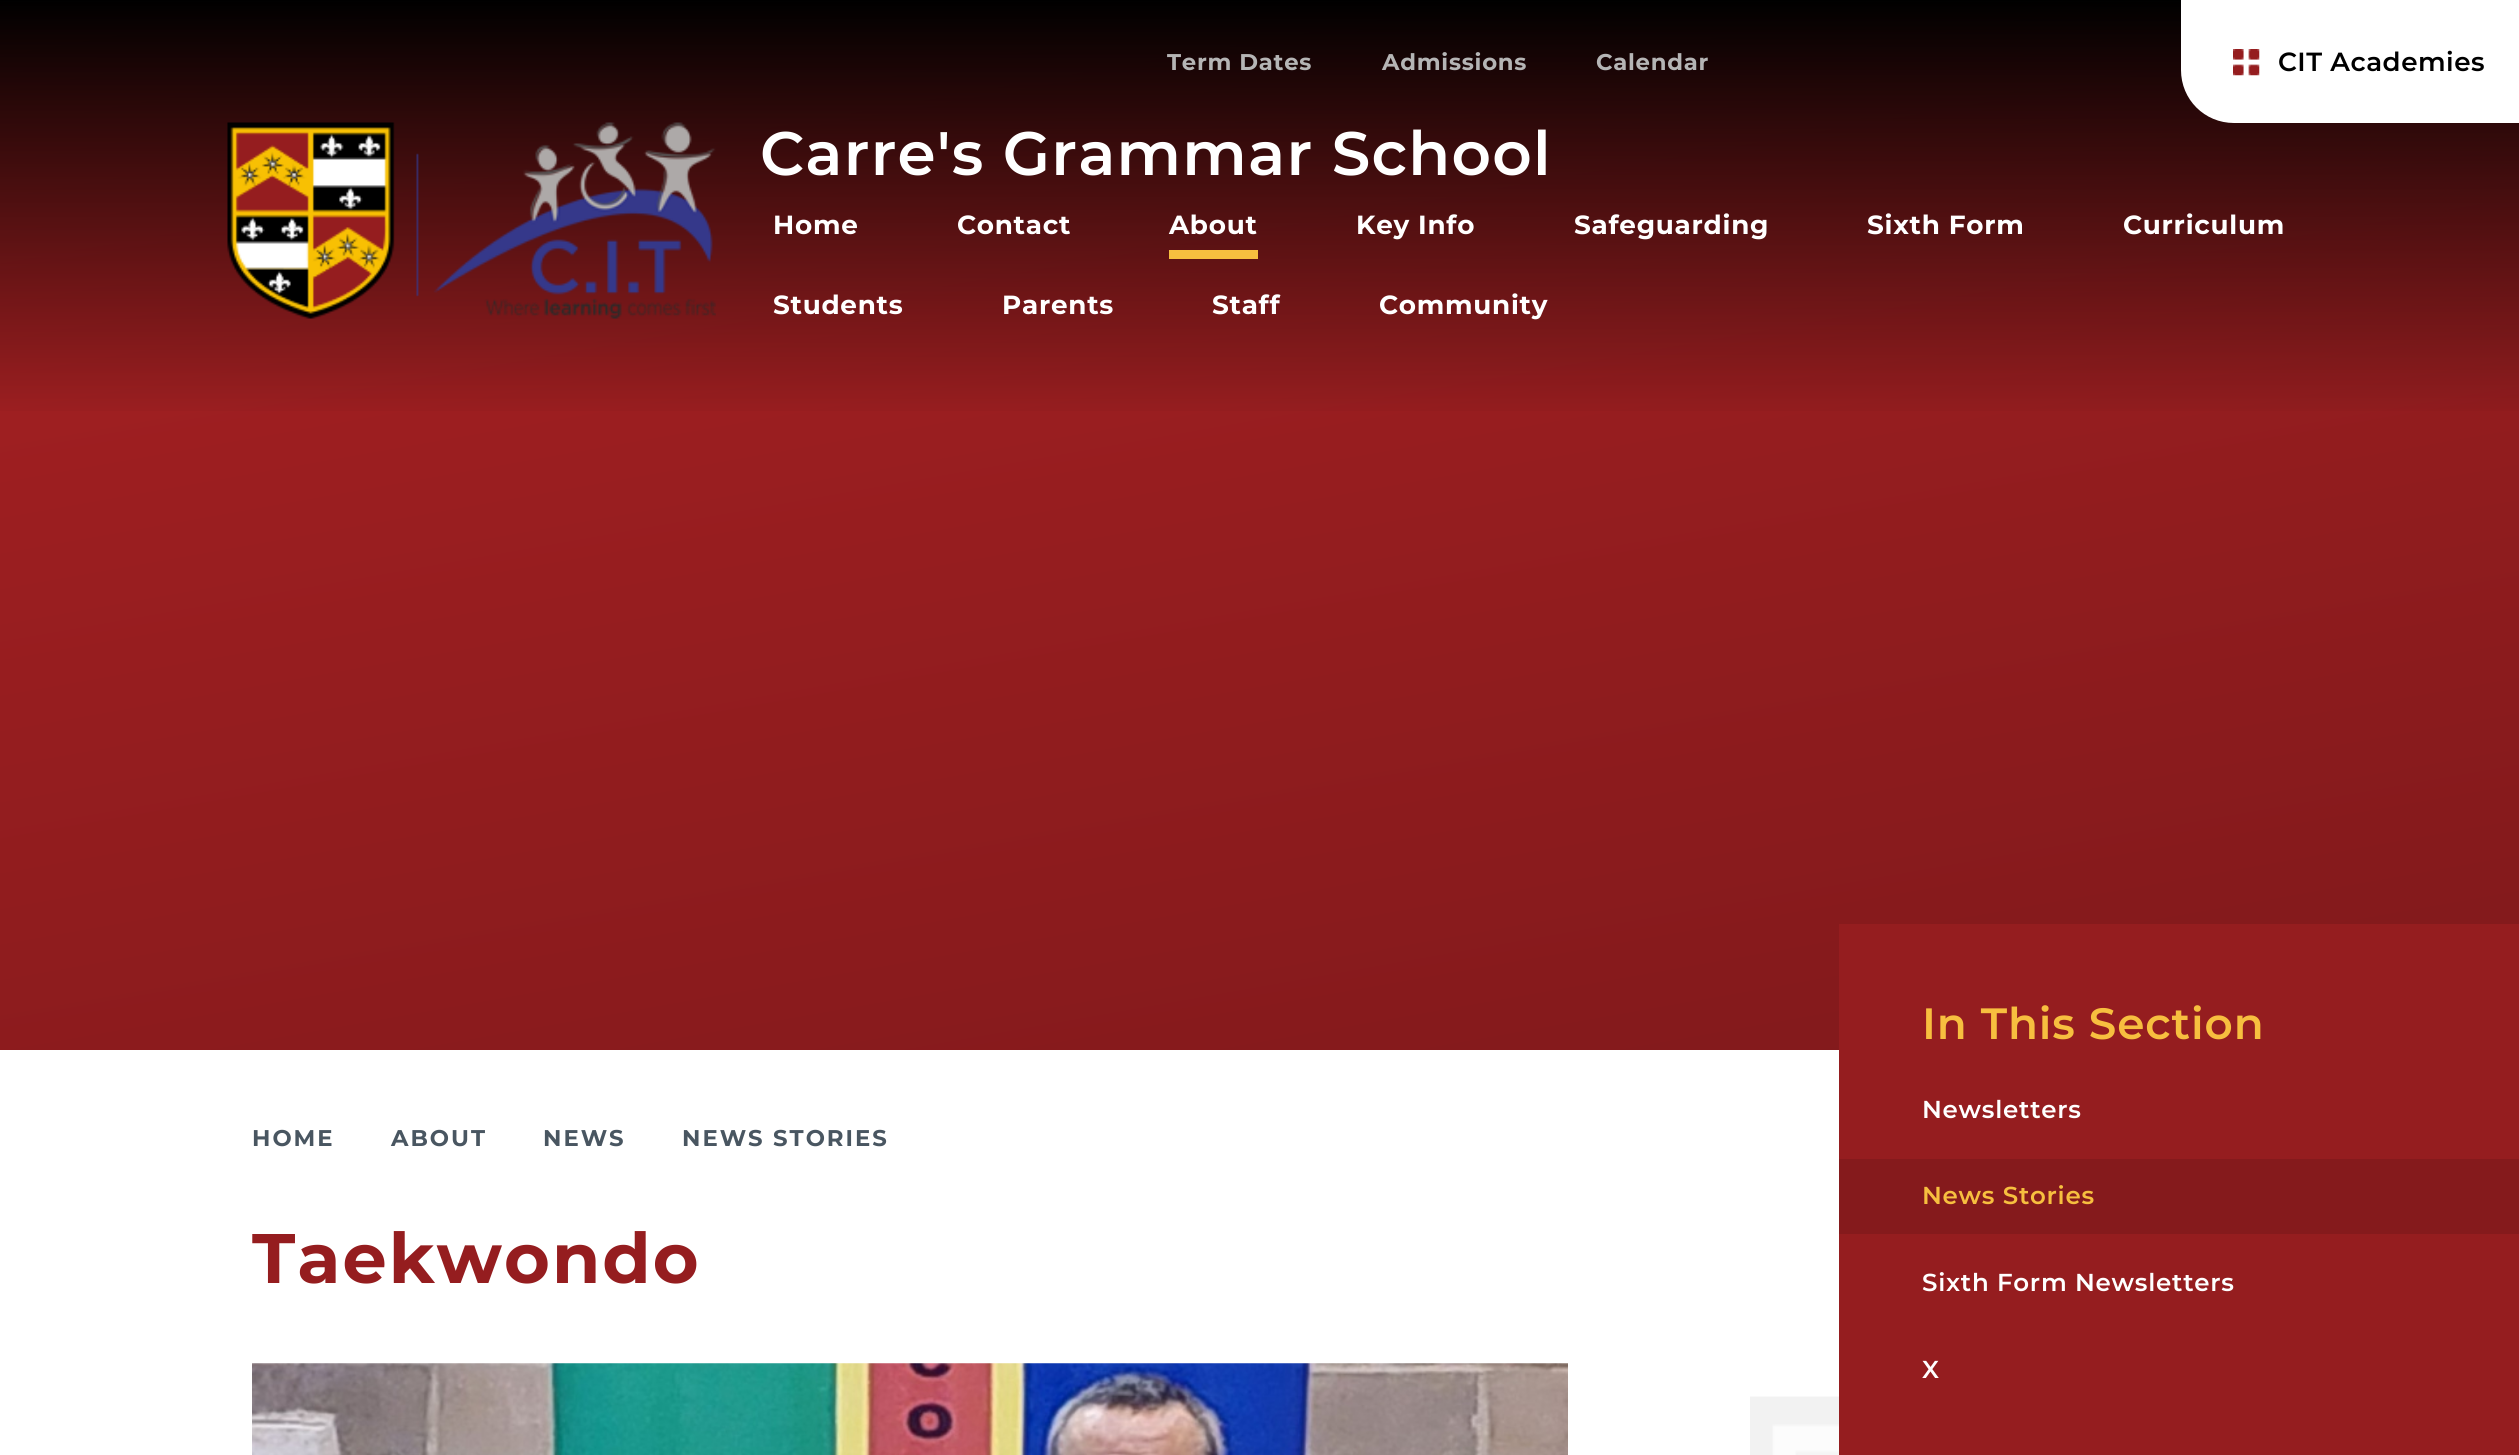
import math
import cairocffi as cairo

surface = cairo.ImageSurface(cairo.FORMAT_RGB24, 2519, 1455)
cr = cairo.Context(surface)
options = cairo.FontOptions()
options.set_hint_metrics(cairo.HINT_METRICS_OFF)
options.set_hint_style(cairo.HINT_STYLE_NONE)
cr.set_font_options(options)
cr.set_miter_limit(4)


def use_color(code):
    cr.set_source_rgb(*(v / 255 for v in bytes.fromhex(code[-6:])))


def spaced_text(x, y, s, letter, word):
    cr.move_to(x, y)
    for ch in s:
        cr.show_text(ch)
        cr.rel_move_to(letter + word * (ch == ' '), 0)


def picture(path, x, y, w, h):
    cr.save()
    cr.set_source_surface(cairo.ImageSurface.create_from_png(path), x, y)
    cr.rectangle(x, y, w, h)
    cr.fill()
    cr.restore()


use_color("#ffffff")
cr.paint()
gradient = cairo.LinearGradient(1132, -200, 1388, 1250)
gradient.add_color_stop_rgba(0, 0.667, 0.129, 0.137, 1)
gradient.add_color_stop_rgba(1, 0.502, 0.098, 0.106, 1)
cr.set_source(gradient)
cr.rectangle(0, 2, 2519, 1048)
cr.fill()
gradient = cairo.LinearGradient(1260, 420, 1260, 0)
gradient.add_color_stop_rgba(0, 0, 0, 0, 0)
gradient.add_color_stop_rgba(1, 0, 0, 0, 1)
cr.set_source(gradient)
cr.rectangle(0, 0, 2519, 411)
cr.fill()
picture("img1.png", 227, 122, 489, 197)
cr.select_font_face("Montserrat", cairo.FONT_SLANT_NORMAL, cairo.FONT_WEIGHT_BOLD)
cr.set_font_size(22.75)
use_color("#b5b5b5")
spaced_text(1167, 70, "Term Dates", 0.75, 0)
spaced_text(1382, 70, "Admissions", 0.75, 0)
spaced_text(1596, 70, "Calendar", 0.75, 0)
use_color("#ffffff")
cr.new_path()
cr.move_to(2181, 0)
cr.line_to(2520, 0)
cr.line_to(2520, 123)
cr.line_to(2234, 123)
cr.curve_to(2204.5, 123, 2181, 99.5, 2181, 70)
cr.close_path()
cr.fill()
picture("img2.png", 2233, 49, 27, 27)
cr.select_font_face("Montserrat SemiBold")
cr.set_font_size(26.25)
use_color("#000000")
spaced_text(2278, 71, "CIT Academies", 0.5, 0)
cr.set_font_size(61.25)
use_color("#ffffff")
spaced_text(760, 175, "Carre's Grammar School", 1.25, 0)
cr.select_font_face("Montserrat", cairo.FONT_SLANT_NORMAL, cairo.FONT_WEIGHT_BOLD)
cr.set_font_size(26.25)
spaced_text(773, 234, "Home", 0.75, 0)
spaced_text(957, 234, "Contact", 0.75, 0)
spaced_text(1169, 234, "About", 0.75, 0)
use_color("#f7bf3f")
cr.rectangle(1169, 250, 89, 9)
cr.fill()
use_color("#ffffff")
spaced_text(1356, 234, "Key Info", 0.75, 0)
spaced_text(1574, 234, "Safeguarding", 0.75, 0)
spaced_text(1867, 234, "Sixth Form", 0.75, 0)
spaced_text(2123, 234, "Curriculum", 0.75, 0)
spaced_text(773, 314, "Students", 0.75, 0)
spaced_text(1002, 314, "Parents", 0.75, 0)
spaced_text(1212, 314, "Staff", 0.75, 0)
spaced_text(1379, 314, "Community", 0.75, 0)
cr.set_font_size(22.75)
use_color("#495661")
spaced_text(252, 1146, "HOME", 2, 0)
spaced_text(391, 1146, "ABOUT", 2, 0)
spaced_text(543, 1146, "NEWS", 2, 0)
spaced_text(682, 1146, "NEWS STORIES", 2, 0)
cr.set_font_size(70)
use_color("#951d1f")
spaced_text(252, 1283, "Taekwondo", 2, 0)
picture("img3.png", 252, 1363, 1316, 92)
cr.rectangle(1839, 924, 680, 531)
cr.fill()
cr.select_font_face("Montserrat SemiBold")
cr.set_font_size(43.75)
use_color("#f7bf3f")
spaced_text(1922, 1039, "In This Section", 0.9, 0)
cr.set_font_size(24.5)
use_color("#ffffff")
spaced_text(1922, 1118, "Newsletters", 0.75, 0)
use_color("#851a1c")
cr.rectangle(1839, 1159, 680, 75)
cr.fill()
use_color("#f7bf3f")
spaced_text(1922, 1204, "News Stories", 0.75, 0)
use_color("#ffffff")
spaced_text(1922, 1291, "Sixth Form Newsletters", 0.75, 0)
spaced_text(1922, 1378, "X", 0.75, 0)
picture("img4.png", 1750, 1396, 89, 59)
surface.write_to_png("result.png")
